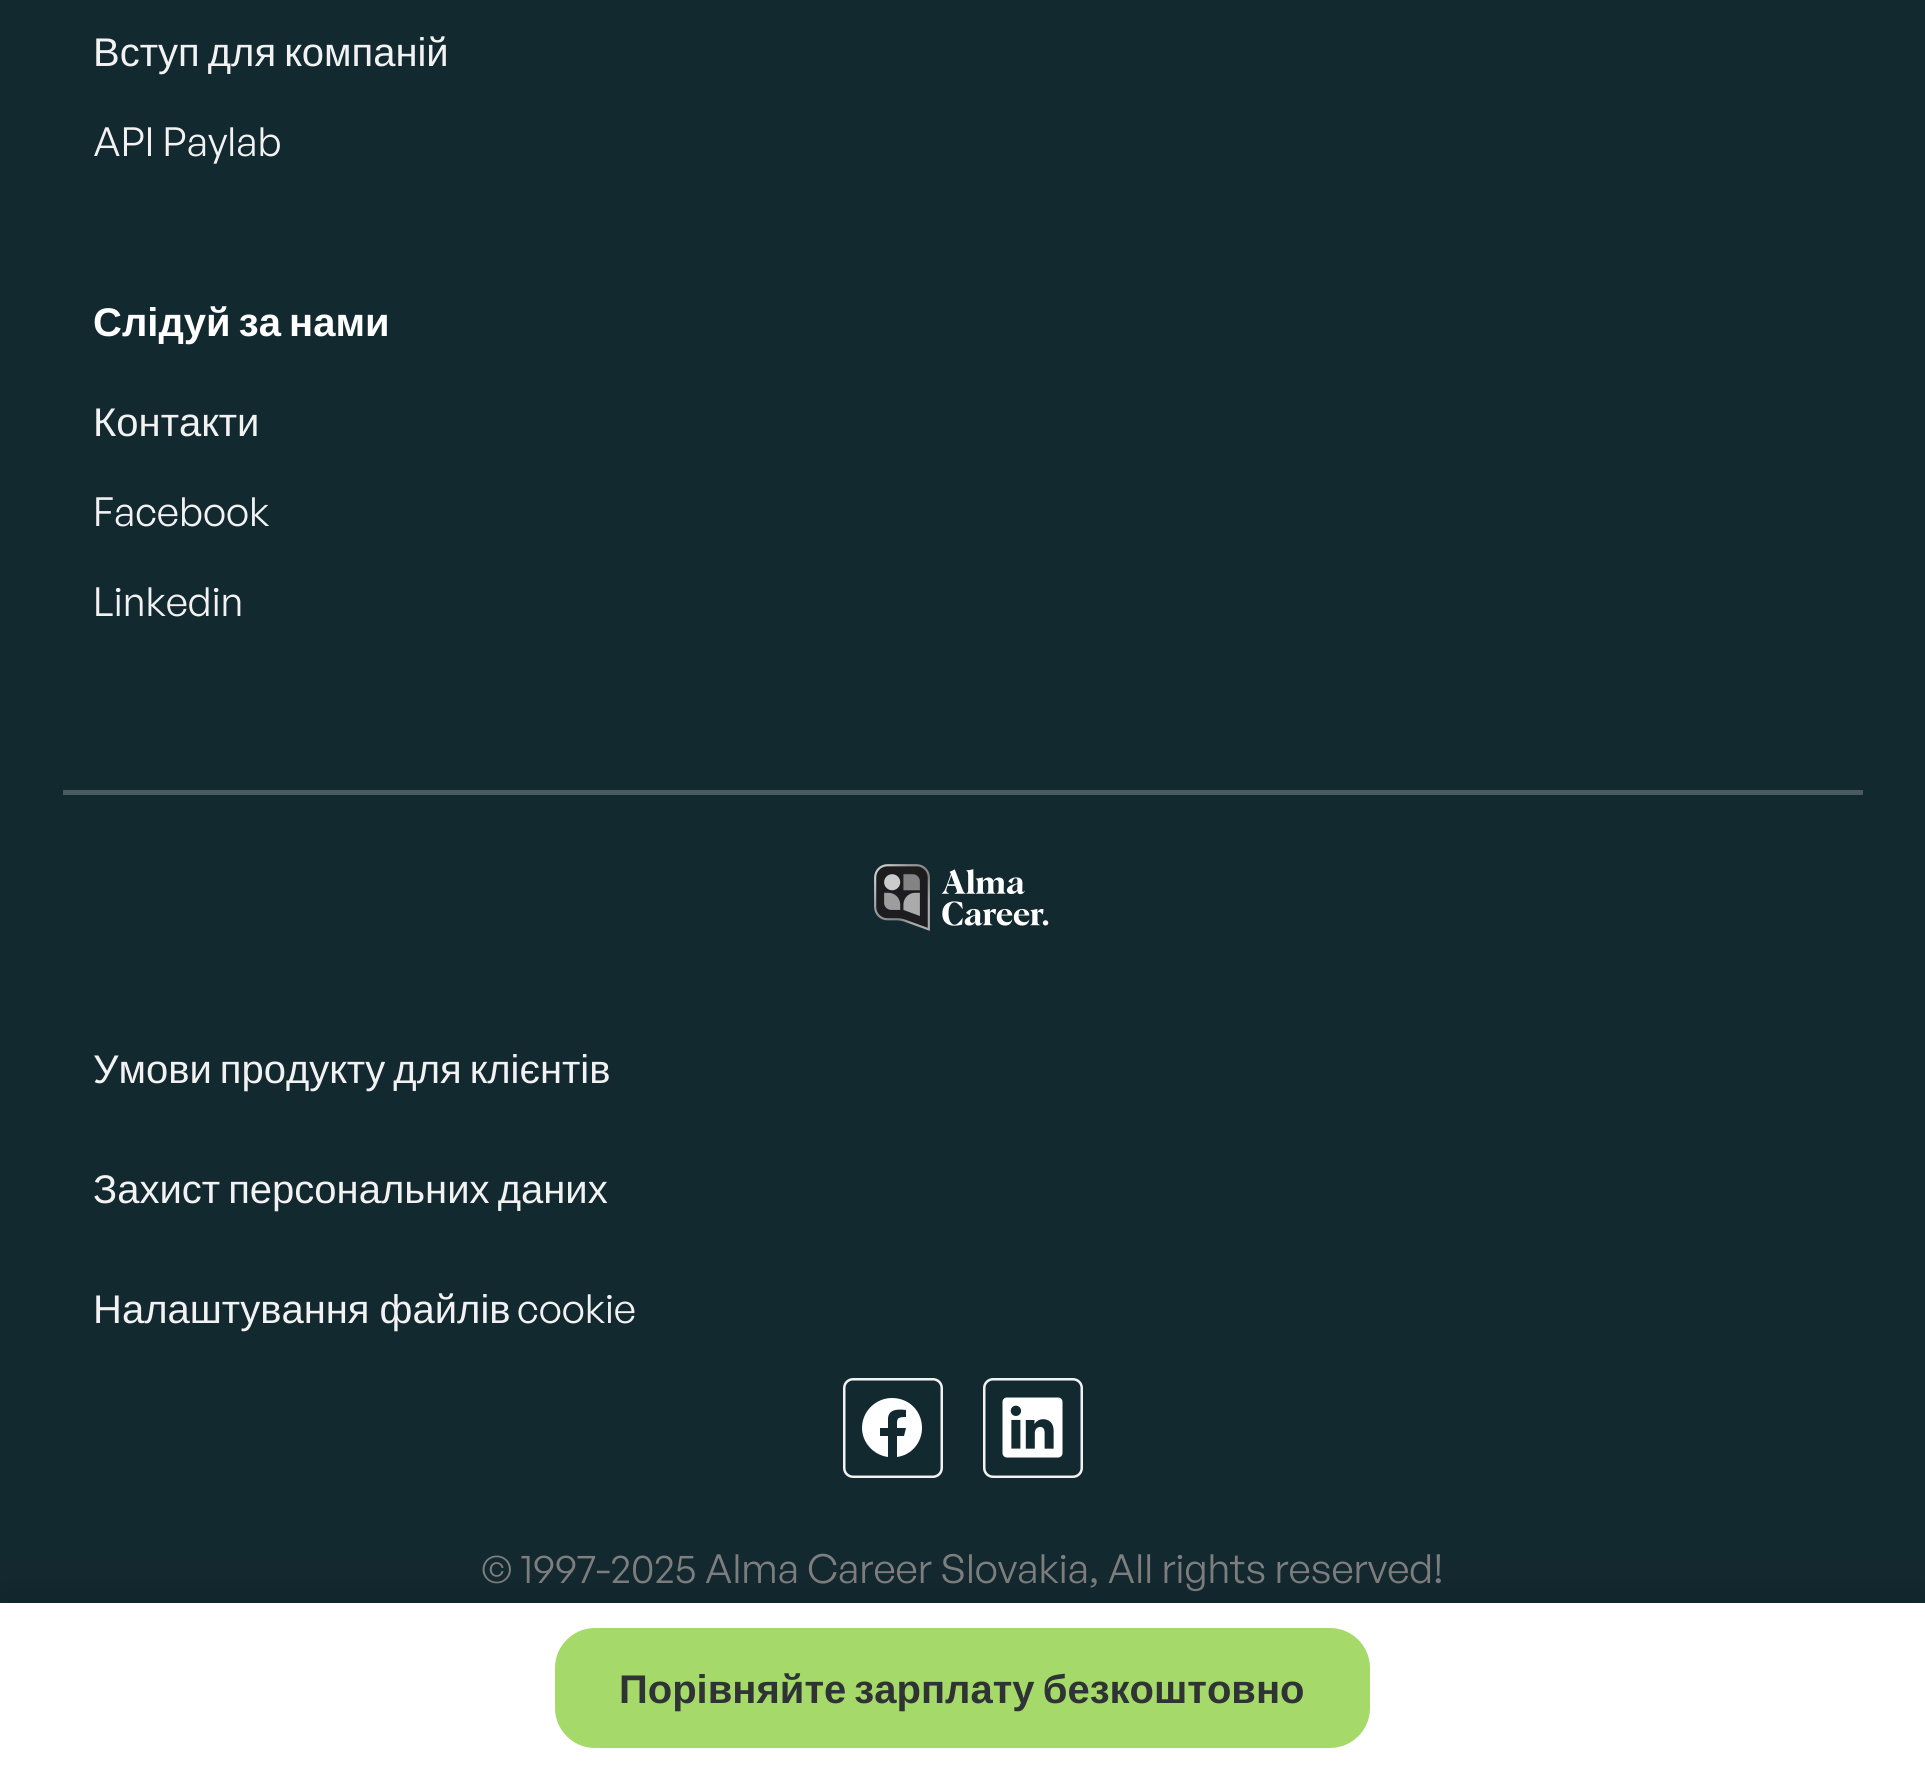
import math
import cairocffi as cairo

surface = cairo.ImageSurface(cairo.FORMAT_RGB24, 1925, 1771)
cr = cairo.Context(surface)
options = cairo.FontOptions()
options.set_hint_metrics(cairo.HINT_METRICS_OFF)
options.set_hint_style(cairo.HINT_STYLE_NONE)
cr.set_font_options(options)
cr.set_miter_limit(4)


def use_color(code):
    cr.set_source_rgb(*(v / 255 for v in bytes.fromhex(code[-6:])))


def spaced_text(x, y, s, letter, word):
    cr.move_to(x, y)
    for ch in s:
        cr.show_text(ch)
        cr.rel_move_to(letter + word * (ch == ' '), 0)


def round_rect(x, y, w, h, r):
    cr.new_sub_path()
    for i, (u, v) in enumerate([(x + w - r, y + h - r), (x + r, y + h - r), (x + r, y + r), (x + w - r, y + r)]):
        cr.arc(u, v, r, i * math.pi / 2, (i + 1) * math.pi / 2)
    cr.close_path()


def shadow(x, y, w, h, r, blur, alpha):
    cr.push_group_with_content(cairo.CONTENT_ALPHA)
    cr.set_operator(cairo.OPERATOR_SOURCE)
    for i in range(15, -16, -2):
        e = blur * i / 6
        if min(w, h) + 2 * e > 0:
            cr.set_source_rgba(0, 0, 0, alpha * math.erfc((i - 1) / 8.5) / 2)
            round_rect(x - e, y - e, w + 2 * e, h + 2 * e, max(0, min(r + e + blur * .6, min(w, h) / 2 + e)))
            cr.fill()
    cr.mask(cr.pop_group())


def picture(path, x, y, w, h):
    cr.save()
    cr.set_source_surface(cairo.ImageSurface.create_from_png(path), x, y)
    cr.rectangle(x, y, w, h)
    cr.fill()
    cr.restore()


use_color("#132930")
cr.paint()
cr.select_font_face("Liberation Sans")
cr.set_font_size(40)
use_color("#f2f2f3")
spaced_text(93, 66, "Вступ для компаній", 0, -3)
cr.select_font_face("General Sans")
cr.move_to(93, 156)
cr.show_text("API Paylab")
cr.select_font_face("Liberation Sans", cairo.FONT_SLANT_NORMAL, cairo.FONT_WEIGHT_BOLD)
use_color("#ffffff")
spaced_text(93, 336, "Слідуй за нами", 0, -3)
cr.select_font_face("Liberation Sans")
use_color("#f2f2f3")
cr.move_to(93, 436)
cr.show_text("Контакти")
cr.select_font_face("General Sans")
cr.move_to(93, 526)
cr.show_text("Facebook")
cr.move_to(93, 616)
cr.show_text("Linkedin")
use_color("#4a5b60")
cr.rectangle(63, 790, 1800, 5)
cr.fill()
picture("img1.png", 874, 864, 175, 67)
cr.select_font_face("Liberation Sans")
use_color("#f2f2f3")
spaced_text(93, 1083, "Умови продукту для клієнтів", 0, -3)
spaced_text(93, 1203, "Захист персональних даних", 0, -3)
spaced_text(93, 1323, "Налаштування файлів", 0, -1)
cr.select_font_face("General Sans")
cr.move_to(517, 1323)
cr.show_text("cookie")
round_rect(844.25, 1379.25, 97.5, 97.5, 8.75)
cr.set_line_width(2.5)
cr.stroke()
use_color("#ffffff")
cr.new_path()
cr.move_to(922, 1428)
cr.curve_to(922, 1411, 909, 1398, 892, 1398)
cr.curve_to(876, 1398, 862, 1411, 862, 1428)
cr.curve_to(862, 1442, 873, 1455, 888, 1457)
cr.line_to(888, 1436)
cr.line_to(880, 1436)
cr.line_to(880, 1428)
cr.line_to(888, 1428)
cr.line_to(888, 1418)
cr.curve_to(889, 1409, 898, 1409, 906, 1410)
cr.line_to(906, 1417)
cr.curve_to(896, 1417, 897, 1419, 897, 1428)
cr.line_to(906, 1428)
cr.line_to(904, 1436)
cr.line_to(897, 1436)
cr.line_to(897, 1457)
cr.curve_to(912, 1455, 922, 1442, 922, 1428)
cr.close_path()
cr.fill()
picture("img2.png", 983, 1378, 100, 100)
use_color("#808080")
cr.move_to(481, 1583)
cr.show_text("© 1997-2025 Alma Career Slovakia, All rights reserved!")
use_color("#000000")
shadow(0, 1615, 1925, 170, 0, 31, 0.25)
use_color("#ffffff")
cr.rectangle(0, 1603, 1925, 168)
cr.fill()
use_color("#a5da6a")
round_rect(557.5, 1630.5, 810, 115, 37.5)
cr.fill_preserve()
cr.set_line_width(5)
cr.stroke()
cr.select_font_face("Liberation Sans", cairo.FONT_SLANT_NORMAL, cairo.FONT_WEIGHT_BOLD)
use_color("#303335")
spaced_text(619, 1703, "Порівняйте зарплату безкоштовно", 0, -3)
surface.write_to_png("result.png")
